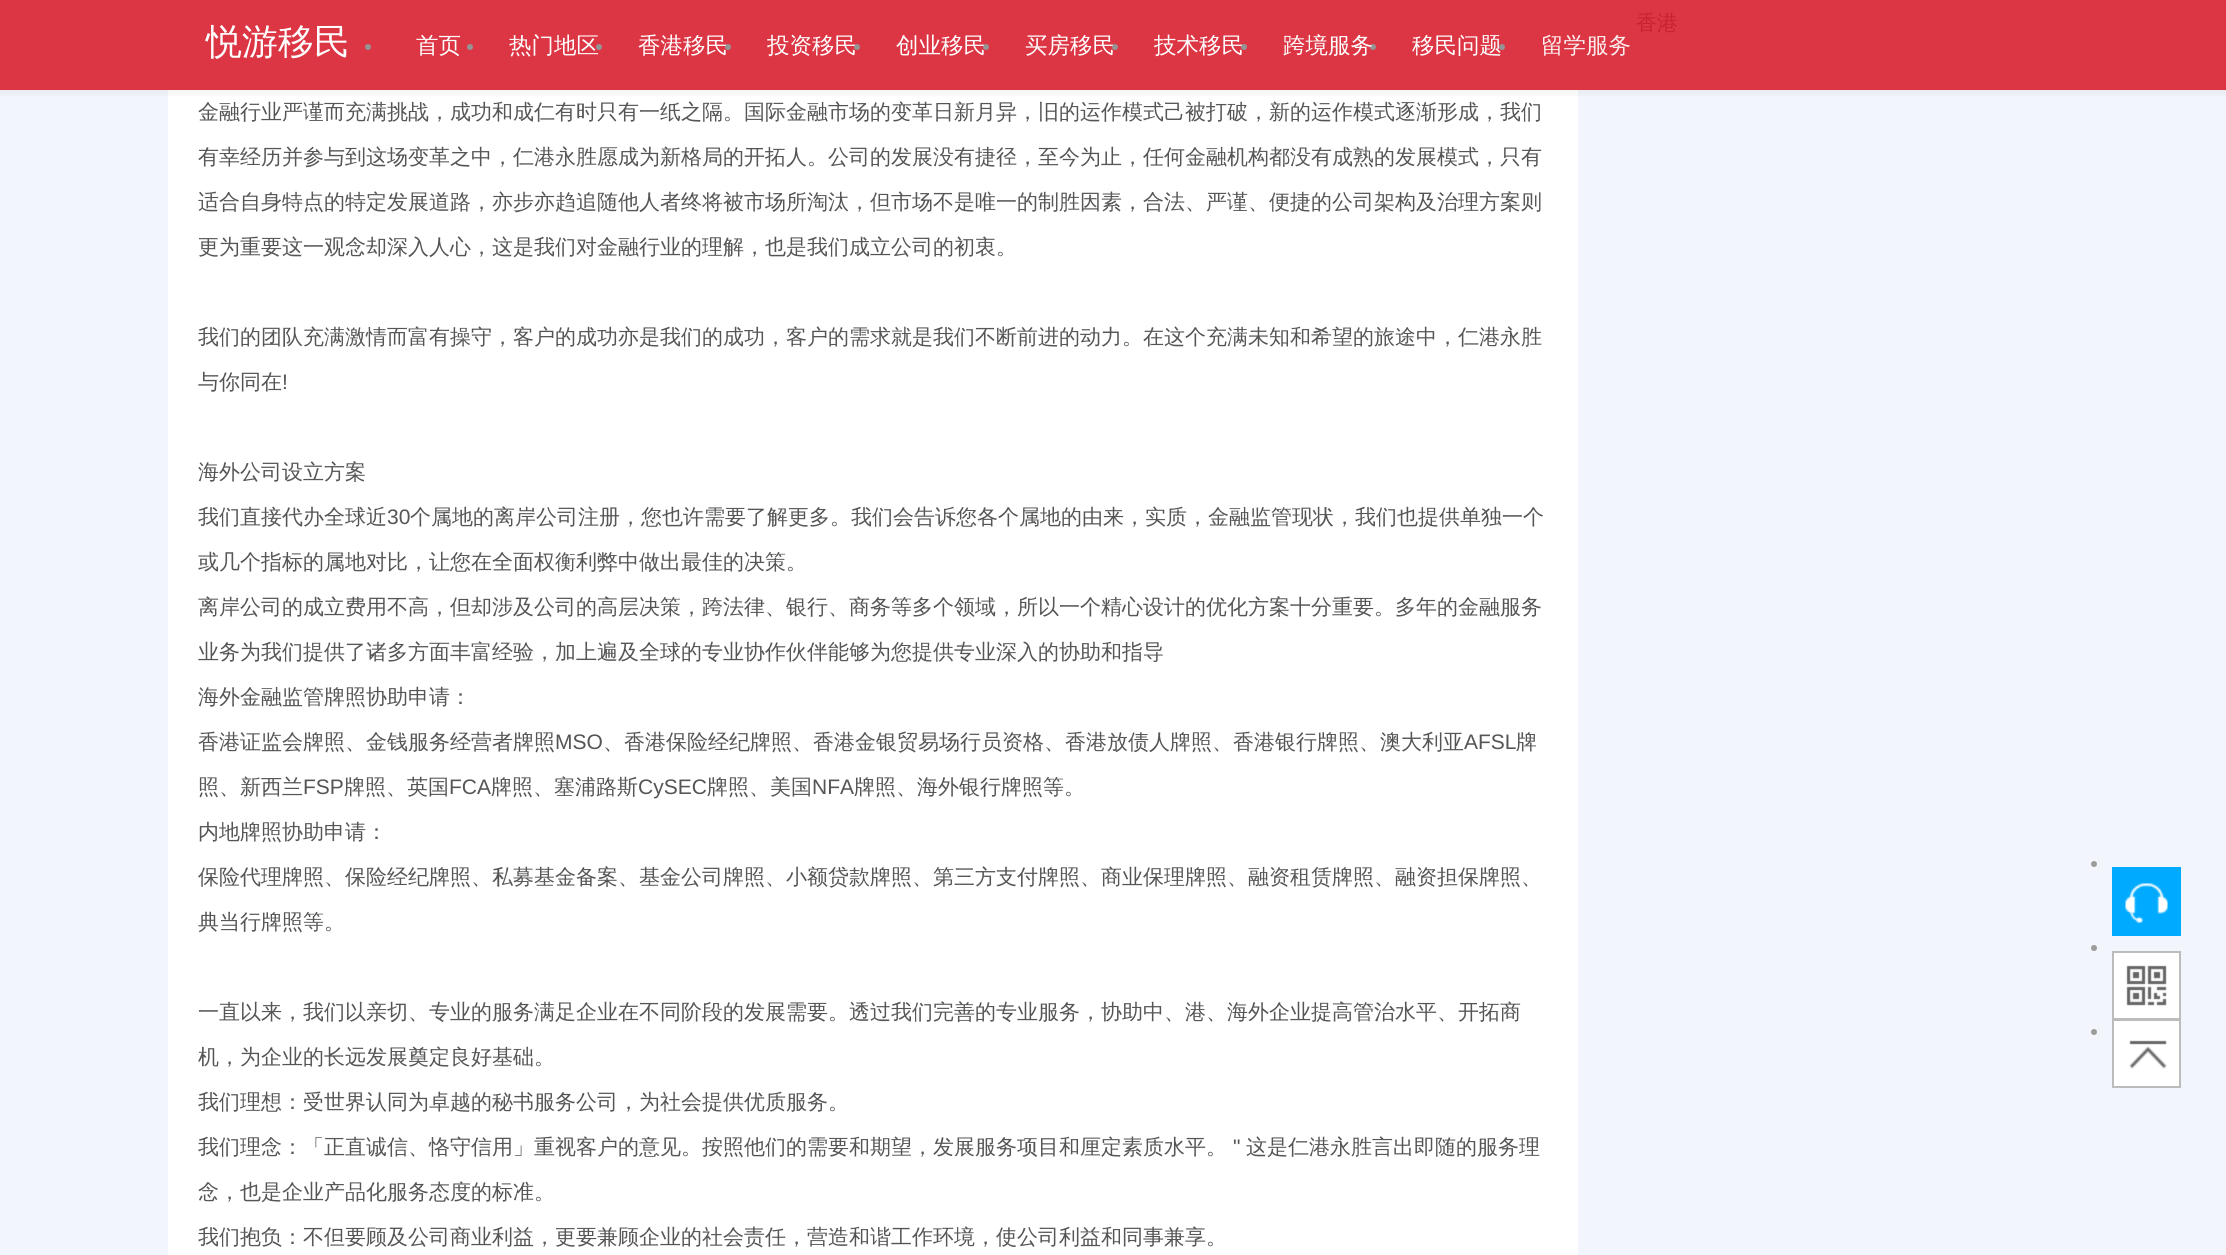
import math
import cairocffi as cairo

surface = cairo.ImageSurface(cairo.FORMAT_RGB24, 2226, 1255)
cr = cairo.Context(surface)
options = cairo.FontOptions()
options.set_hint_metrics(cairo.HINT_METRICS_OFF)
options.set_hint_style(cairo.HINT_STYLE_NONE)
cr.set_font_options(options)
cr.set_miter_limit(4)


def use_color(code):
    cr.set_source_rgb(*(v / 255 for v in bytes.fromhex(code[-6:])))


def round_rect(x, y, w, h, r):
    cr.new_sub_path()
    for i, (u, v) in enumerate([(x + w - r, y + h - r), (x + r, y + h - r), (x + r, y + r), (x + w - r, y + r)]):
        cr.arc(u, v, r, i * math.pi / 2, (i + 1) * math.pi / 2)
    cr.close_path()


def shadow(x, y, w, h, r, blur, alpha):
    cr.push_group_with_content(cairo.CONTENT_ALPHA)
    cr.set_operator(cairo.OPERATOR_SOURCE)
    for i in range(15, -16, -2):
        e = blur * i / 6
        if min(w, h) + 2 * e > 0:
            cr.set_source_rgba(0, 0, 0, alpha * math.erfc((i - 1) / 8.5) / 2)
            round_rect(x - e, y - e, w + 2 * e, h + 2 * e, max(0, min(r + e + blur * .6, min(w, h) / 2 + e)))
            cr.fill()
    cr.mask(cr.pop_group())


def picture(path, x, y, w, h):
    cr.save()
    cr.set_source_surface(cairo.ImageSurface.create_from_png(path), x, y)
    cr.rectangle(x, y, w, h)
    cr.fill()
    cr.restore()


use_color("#f2f6fc")
cr.paint()
use_color("#dc3543")
cr.rectangle(0, 0, 2226, 90)
cr.fill()
cr.select_font_face("WenQuanYi Zen Hei Medium")
cr.set_font_size(21)
use_color("#c9212f")
cr.move_to(1636, 30)
cr.show_text("香港")
use_color("#ffffff")
cr.rectangle(168, 90, 1410, 1165)
cr.fill()
use_color("#555555")
cr.move_to(198, 119)
cr.show_text("金融行业严谨而充满挑战，成功和成仁有时只有一纸之隔。国际金融市场的变革日新月异，旧的运作模式己被打破，新的运作模式逐渐形成，我们")
cr.move_to(198, 164)
cr.show_text("有幸经历并参与到这场变革之中，仁港永胜愿成为新格局的开拓人。公司的发展没有捷径，至今为止，任何金融机构都没有成熟的发展模式，只有")
cr.move_to(198, 209)
cr.show_text("适合自身特点的特定发展道路，亦步亦趋追随他人者终将被市场所淘汰，但市场不是唯一的制胜因素，合法、严谨、便捷的公司架构及治理方案则")
cr.move_to(198, 254)
cr.show_text("更为重要这一观念却深入人心，这是我们对金融行业的理解，也是我们成立公司的初衷。")
cr.move_to(198, 344)
cr.show_text("我们的团队充满激情而富有操守，客户的成功亦是我们的成功，客户的需求就是我们不断前进的动力。在这个充满未知和希望的旅途中，仁港永胜")
cr.move_to(198, 389)
cr.show_text("与你同在")
cr.select_font_face("Liberation Sans")
cr.move_to(282, 389)
cr.show_text("!")
cr.select_font_face("WenQuanYi Zen Hei Medium")
cr.move_to(198, 479)
cr.show_text("海外公司设立方案")
cr.move_to(198, 524)
cr.show_text("我们直接代办全球近")
cr.select_font_face("Liberation Sans")
cr.move_to(387, 524)
cr.show_text("30")
cr.select_font_face("WenQuanYi Zen Hei Medium")
cr.move_to(410, 524)
cr.show_text("个属地的离岸公司注册，您也许需要了解更多。我们会告诉您各个属地的由来，实质，金融监管现状，我们也提供单独一个")
cr.move_to(198, 569)
cr.show_text("或几个指标的属地对比，让您在全面权衡利弊中做出最佳的决策。")
cr.move_to(198, 614)
cr.show_text("离岸公司的成立费用不高，但却涉及公司的高层决策，跨法律、银行、商务等多个领域，所以一个精心设计的优化方案十分重要。多年的金融服务")
cr.move_to(198, 659)
cr.show_text("业务为我们提供了诸多方面丰富经验，加上遍及全球的专业协作伙伴能够为您提供专业深入的协助和指导")
cr.move_to(198, 704)
cr.show_text("海外金融监管牌照协助申请：")
cr.move_to(198, 749)
cr.show_text("香港证监会牌照、金钱服务经营者牌照")
cr.select_font_face("Liberation Sans")
cr.move_to(555, 749)
cr.show_text("MSO")
cr.select_font_face("WenQuanYi Zen Hei Medium")
cr.move_to(603, 749)
cr.show_text("、香港保险经纪牌照、香港金银贸易场行员资格、香港放债人牌照、香港银行牌照、澳大利亚")
cr.select_font_face("Liberation Sans")
cr.move_to(1464, 749)
cr.show_text("AFSL")
cr.select_font_face("WenQuanYi Zen Hei Medium")
cr.move_to(1516, 749)
cr.show_text("牌")
cr.move_to(198, 794)
cr.show_text("照、新西兰")
cr.select_font_face("Liberation Sans")
cr.move_to(303, 794)
cr.show_text("FSP")
cr.select_font_face("WenQuanYi Zen Hei Medium")
cr.move_to(344, 794)
cr.show_text("牌照、英国")
cr.select_font_face("Liberation Sans")
cr.move_to(449, 794)
cr.show_text("FCA")
cr.select_font_face("WenQuanYi Zen Hei Medium")
cr.move_to(491, 794)
cr.show_text("牌照、塞浦路斯")
cr.select_font_face("Liberation Sans")
cr.move_to(638, 794)
cr.show_text("CySEC")
cr.select_font_face("WenQuanYi Zen Hei Medium")
cr.move_to(707, 794)
cr.show_text("牌照、美国")
cr.select_font_face("Liberation Sans")
cr.move_to(812, 794)
cr.show_text("NFA")
cr.select_font_face("WenQuanYi Zen Hei Medium")
cr.move_to(854, 794)
cr.show_text("牌照、海外银行牌照等。")
cr.move_to(198, 839)
cr.show_text("内地牌照协助申请：")
cr.move_to(198, 884)
cr.show_text("保险代理牌照、保险经纪牌照、私募基金备案、基金公司牌照、小额贷款牌照、第三方支付牌照、商业保理牌照、融资租赁牌照、融资担保牌照、")
cr.move_to(198, 929)
cr.show_text("典当行牌照等。")
cr.move_to(198, 1019)
cr.show_text("一直以来，我们以亲切、专业的服务满足企业在不同阶段的发展需要。透过我们完善的专业服务，协助中、港、海外企业提高管治水平、开拓商")
cr.move_to(198, 1064)
cr.show_text("机，为企业的长远发展奠定良好基础。")
cr.move_to(198, 1109)
cr.show_text("我们理想：受世界认同为卓越的秘书服务公司，为社会提供优质服务。")
cr.move_to(198, 1154)
cr.show_text("我们理念：「正直诚信、恪守信用」重视客户的意见。按照他们的需要和期望，发展服务项目和厘定素质水平。")
cr.select_font_face("Liberation Sans")
cr.move_to(1233, 1154)
cr.show_text("\"")
cr.select_font_face("WenQuanYi Zen Hei Medium")
cr.move_to(1246, 1154)
cr.show_text("这是仁港永胜言出即随的服务理")
cr.move_to(198, 1199)
cr.show_text("念，也是企业产品化服务态度的标准。")
cr.move_to(198, 1244)
cr.show_text("我们抱负：不但要顾及公司商业利益，更要兼顾企业的社会责任，营造和谐工作环境，使公司利益和同事兼享。")
cr.save()
cr.rectangle(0, 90, 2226, 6)
cr.clip()
use_color("#000000")
shadow(0, 2, 2226, 90, 0, 7.5, 0.07)
cr.restore()
cr.set_font_size(36)
use_color("#ffffff")
cr.move_to(206, 54)
cr.show_text("悦游移民")
use_color("#949494")
cr.new_path()
cr.arc(368, 47, 3, 0, 2 * math.pi)
cr.fill()
cr.set_font_size(22.5)
use_color("#ffffff")
cr.move_to(416, 53)
cr.show_text("首页")
use_color("#949494")
cr.new_path()
cr.arc(470, 47, 3, 0, 2 * math.pi)
cr.fill()
cr.arc(599, 47, 3, 0, 2 * math.pi)
cr.fill()
use_color("#ffffff")
cr.move_to(509, 53)
cr.show_text("热门地区")
use_color("#949494")
cr.new_path()
cr.arc(728, 47, 3, 0, 2 * math.pi)
cr.fill()
use_color("#ffffff")
cr.move_to(638, 53)
cr.show_text("香港移民")
use_color("#949494")
cr.new_path()
cr.arc(857, 47, 3, 0, 2 * math.pi)
cr.fill()
use_color("#ffffff")
cr.move_to(767, 53)
cr.show_text("投资移民")
use_color("#949494")
cr.new_path()
cr.arc(986, 47, 3, 0, 2 * math.pi)
cr.fill()
use_color("#ffffff")
cr.move_to(896, 53)
cr.show_text("创业移民")
use_color("#949494")
cr.new_path()
cr.arc(1115, 47, 3, 0, 2 * math.pi)
cr.fill()
use_color("#ffffff")
cr.move_to(1025, 53)
cr.show_text("买房移民")
use_color("#949494")
cr.new_path()
cr.arc(1244, 47, 3, 0, 2 * math.pi)
cr.fill()
use_color("#ffffff")
cr.move_to(1154, 53)
cr.show_text("技术移民")
use_color("#949494")
cr.new_path()
cr.arc(1373, 47, 3, 0, 2 * math.pi)
cr.fill()
use_color("#ffffff")
cr.move_to(1283, 53)
cr.show_text("跨境服务")
use_color("#949494")
cr.new_path()
cr.arc(1502, 47, 3, 0, 2 * math.pi)
cr.fill()
use_color("#ffffff")
cr.move_to(1412, 53)
cr.show_text("移民问题")
use_color("#fcebec")
cr.move_to(1541, 53)
cr.show_text("留学服务")
use_color("#9c9c9c")
cr.new_path()
cr.arc(2094, 864, 3, 0, 2 * math.pi)
cr.fill()
use_color("#00aaff")
cr.rectangle(2112, 867, 69, 69)
cr.fill()
picture("img1.png", 2125, 883, 43, 40)
use_color("#9c9c9c")
cr.arc(2094, 948, 3, 0, 2 * math.pi)
cr.fill()
use_color("#ffffff")
cr.rectangle(2114, 953, 65, 65)
cr.fill()
picture("img2.png", 2126, 965, 41, 41)
cr.rectangle(2113, 952, 67, 67)
use_color("#bcbcbc")
cr.stroke()
use_color("#9c9c9c")
cr.arc(2094, 1032, 3, 0, 2 * math.pi)
cr.fill()
use_color("#ffffff")
cr.rectangle(2114, 1021, 65, 65)
cr.fill()
picture("img3.png", 2129, 1040, 38, 29)
cr.rectangle(2113, 1020, 67, 67)
use_color("#bcbcbc")
cr.stroke()
surface.write_to_png("result.png")
